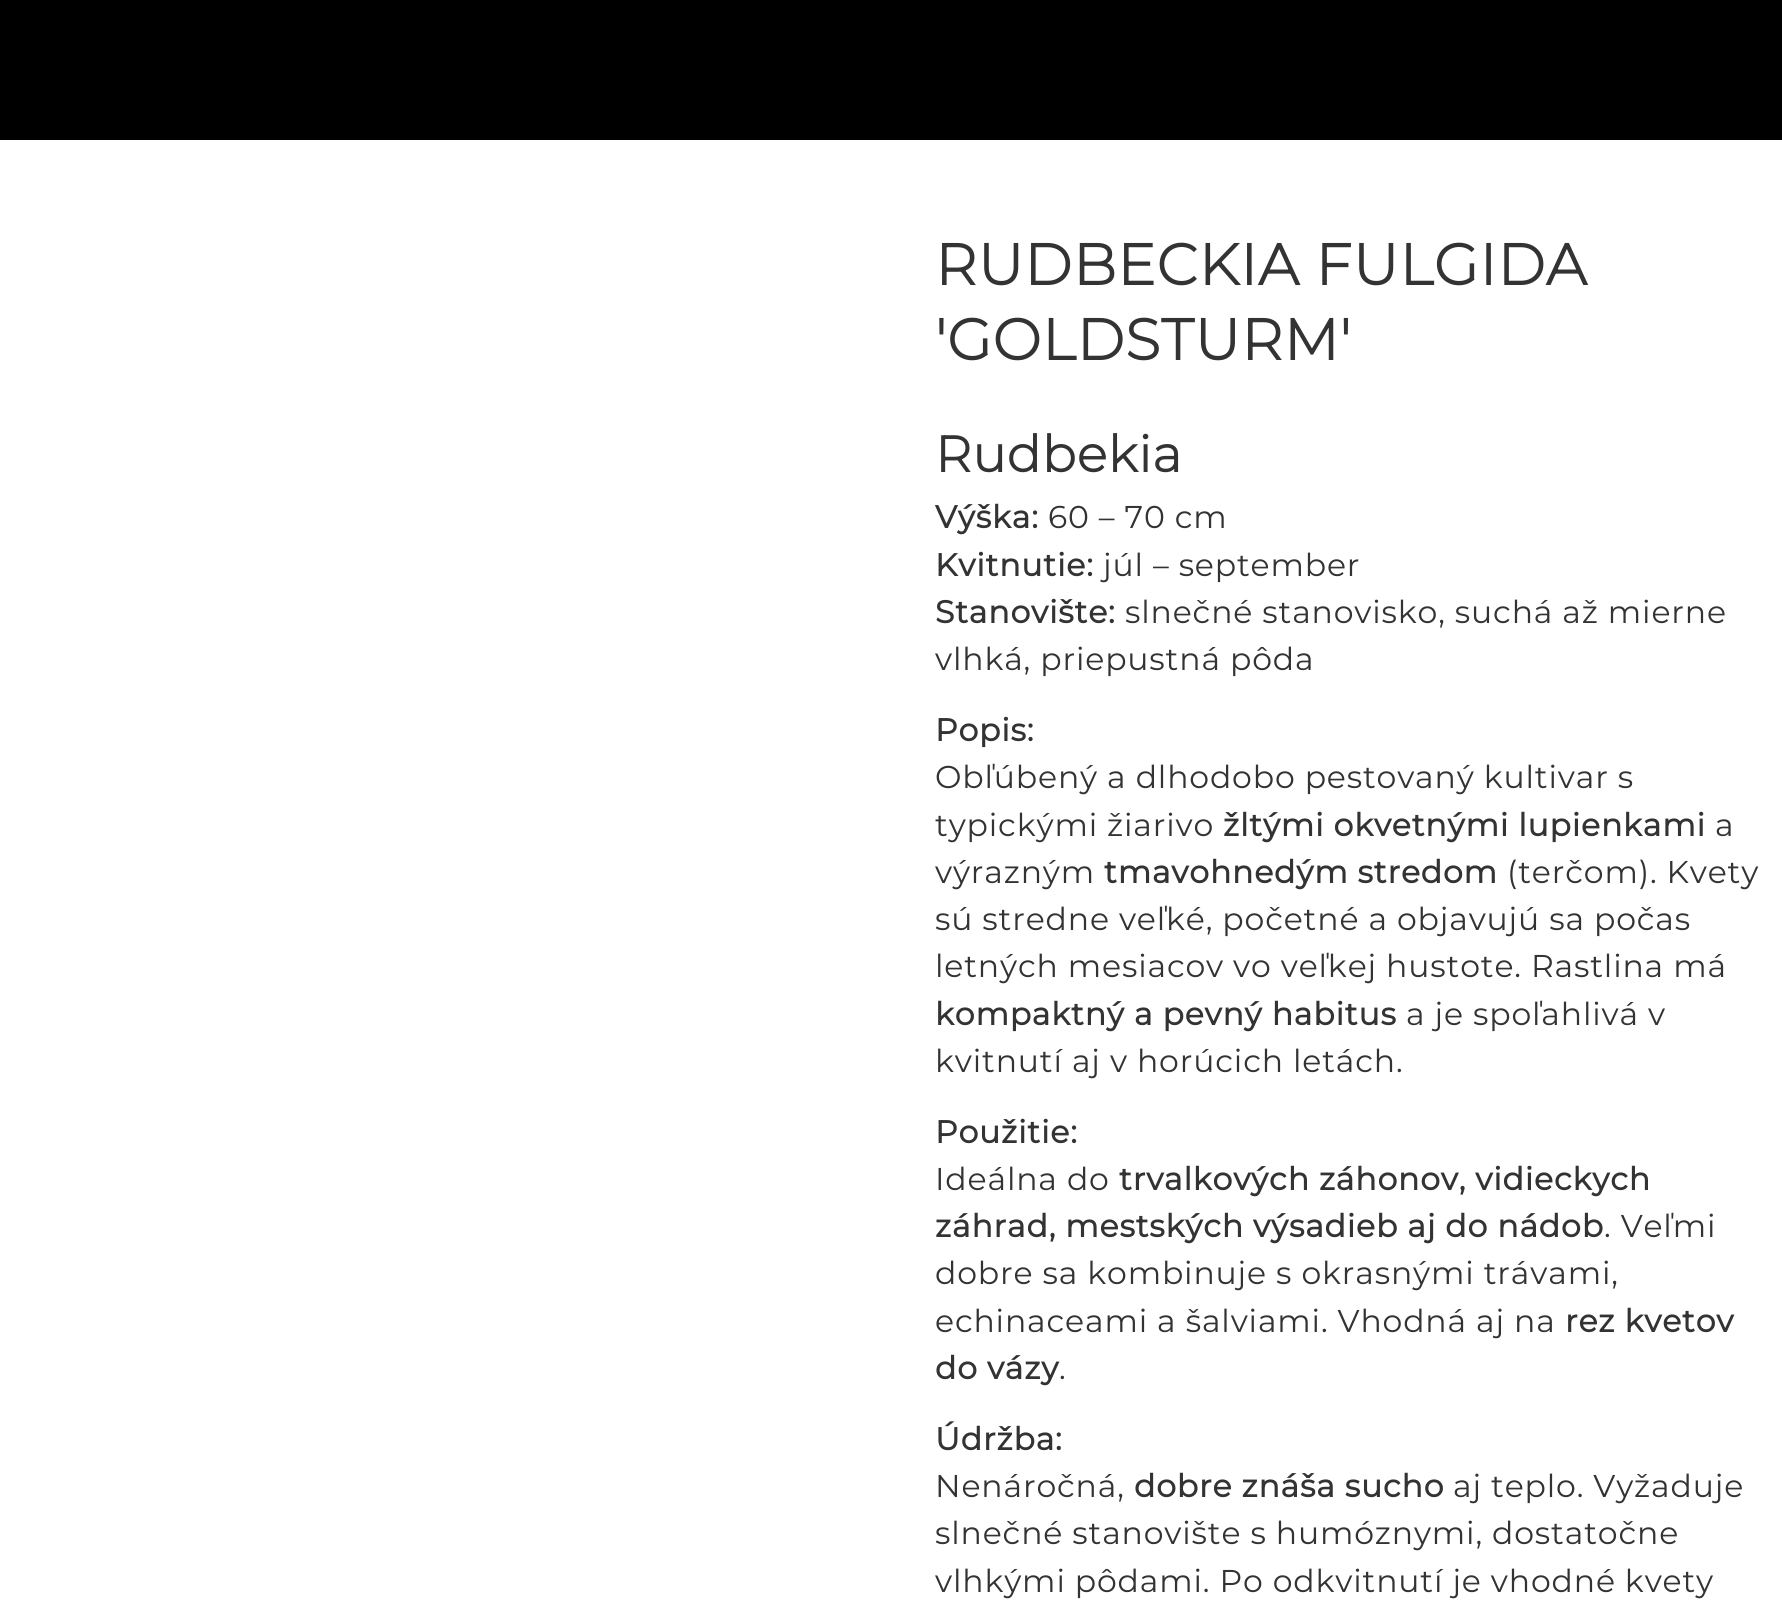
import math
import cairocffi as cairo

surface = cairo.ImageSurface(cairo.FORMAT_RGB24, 1782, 1614)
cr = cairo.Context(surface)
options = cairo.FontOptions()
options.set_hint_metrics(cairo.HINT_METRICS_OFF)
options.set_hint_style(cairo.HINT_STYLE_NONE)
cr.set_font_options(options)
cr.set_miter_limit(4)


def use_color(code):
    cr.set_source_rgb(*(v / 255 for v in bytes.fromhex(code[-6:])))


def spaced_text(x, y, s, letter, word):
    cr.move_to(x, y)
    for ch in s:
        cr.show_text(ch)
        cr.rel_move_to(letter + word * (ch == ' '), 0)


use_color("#ffffff")
cr.paint()
use_color("#000000")
cr.rectangle(0, 0, 1782, 140)
cr.fill()
cr.select_font_face("Montserrat", cairo.FONT_SLANT_NORMAL, cairo.FONT_WEIGHT_BOLD)
cr.set_font_size(57.75)
use_color("#333333")
spaced_text(935, 285, "RUDBECKIA FULGIDA", 0.85, 0)
spaced_text(935, 360, "'GOLDSTURM'", 0.85, 0)
cr.set_font_size(50.5)
spaced_text(935, 472, "Rudbekia", 0.85, 0)
cr.select_font_face("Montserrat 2", cairo.FONT_SLANT_NORMAL, cairo.FONT_WEIGHT_BOLD)
cr.set_font_size(31.5)
spaced_text(935, 528, "Výška:", 0.85, 0)
cr.select_font_face("Montserrat")
spaced_text(1048, 528, "60 – 70 cm", 0.85, 0)
cr.select_font_face("Montserrat 2", cairo.FONT_SLANT_NORMAL, cairo.FONT_WEIGHT_BOLD)
spaced_text(935, 576, "Kvitnutie:", 0.85, 0)
cr.select_font_face("Montserrat")
spaced_text(1103, 576, "júl – september", 0.85, 0)
cr.select_font_face("Montserrat 2", cairo.FONT_SLANT_NORMAL, cairo.FONT_WEIGHT_BOLD)
spaced_text(935, 623, "Stanovište:", 0.85, 0)
cr.select_font_face("Montserrat")
spaced_text(1125, 623, "slnečné stanovisko, suchá až mierne", 0.85, 0)
spaced_text(935, 670, "vlhká, priepustná pôda", 0.85, 0)
cr.select_font_face("Montserrat 2", cairo.FONT_SLANT_NORMAL, cairo.FONT_WEIGHT_BOLD)
spaced_text(935, 741, "Popis:", 0.85, 0)
cr.select_font_face("Montserrat")
spaced_text(935, 788, "Obľúbený a dlhodobo pestovaný kultivar s", 0.85, 0)
spaced_text(935, 836, "typickými žiarivo", 0.85, 0)
cr.select_font_face("Montserrat 2", cairo.FONT_SLANT_NORMAL, cairo.FONT_WEIGHT_BOLD)
spaced_text(1223, 836, "žltými okvetnými lupienkami", 0.85, 0)
cr.select_font_face("Montserrat")
spaced_text(1715, 836, "a", 0.85, 0)
spaced_text(935, 883, "výrazným", 0.85, 0)
cr.select_font_face("Montserrat 2", cairo.FONT_SLANT_NORMAL, cairo.FONT_WEIGHT_BOLD)
spaced_text(1104, 883, "tmavohnedým stredom", 0.85, 0)
cr.select_font_face("Montserrat")
spaced_text(1507, 883, "(terčom). Kvety", 0.85, 0)
spaced_text(935, 930, "sú stredne veľké, početné a objavujú sa počas", 0.85, 0)
spaced_text(935, 977, "letných mesiacov vo veľkej hustote. Rastlina má", 0.85, 0)
cr.select_font_face("Montserrat 2", cairo.FONT_SLANT_NORMAL, cairo.FONT_WEIGHT_BOLD)
spaced_text(935, 1025, "kompaktný a pevný habitus", 0.85, 0)
cr.select_font_face("Montserrat")
spaced_text(1406, 1025, "a je spoľahlivá v", 0.85, 0)
spaced_text(935, 1072, "kvitnutí aj v horúcich letách.", 0.85, 0)
cr.select_font_face("Montserrat 2", cairo.FONT_SLANT_NORMAL, cairo.FONT_WEIGHT_BOLD)
spaced_text(935, 1143, "Použitie:", 0.85, 0)
cr.select_font_face("Montserrat")
spaced_text(935, 1190, "Ideálna do", 0.85, 0)
cr.select_font_face("Montserrat 2", cairo.FONT_SLANT_NORMAL, cairo.FONT_WEIGHT_BOLD)
spaced_text(1119, 1190, "trvalkových záhonov, vidieckych", 0.85, 0)
spaced_text(935, 1237, "záhrad, mestských výsadieb aj do nádob", 0.85, 0)
cr.select_font_face("Montserrat")
spaced_text(1604, 1237, ". Veľmi", 0.85, 0)
spaced_text(935, 1284, "dobre sa kombinuje s okrasnými trávami,", 0.85, 0)
spaced_text(935, 1332, "echinaceami a šalviami. Vhodná aj na", 0.85, 0)
cr.select_font_face("Montserrat 2", cairo.FONT_SLANT_NORMAL, cairo.FONT_WEIGHT_BOLD)
spaced_text(1565, 1332, "rez kvetov", 0.85, 0)
spaced_text(935, 1379, "do vázy", 0.85, 0)
cr.select_font_face("Montserrat")
spaced_text(1059, 1379, ".", 0.85, 0)
cr.select_font_face("Montserrat 2", cairo.FONT_SLANT_NORMAL, cairo.FONT_WEIGHT_BOLD)
spaced_text(935, 1450, "Údržba:", 0.85, 0)
cr.select_font_face("Montserrat")
spaced_text(935, 1497, "Nenáročná,", 0.85, 0)
cr.select_font_face("Montserrat 2", cairo.FONT_SLANT_NORMAL, cairo.FONT_WEIGHT_BOLD)
spaced_text(1134, 1497, "dobre znáša sucho", 0.85, 0)
cr.select_font_face("Montserrat")
spaced_text(1453, 1497, "aj teplo. Vyžaduje", 0.85, 0)
spaced_text(935, 1544, "slnečné stanovište s humóznymi, dostatočne", 0.85, 0)
spaced_text(935, 1592, "vlhkými pôdami. Po odkvitnutí je vhodné kvety", 0.85, 0)
surface.write_to_png("result.png")
